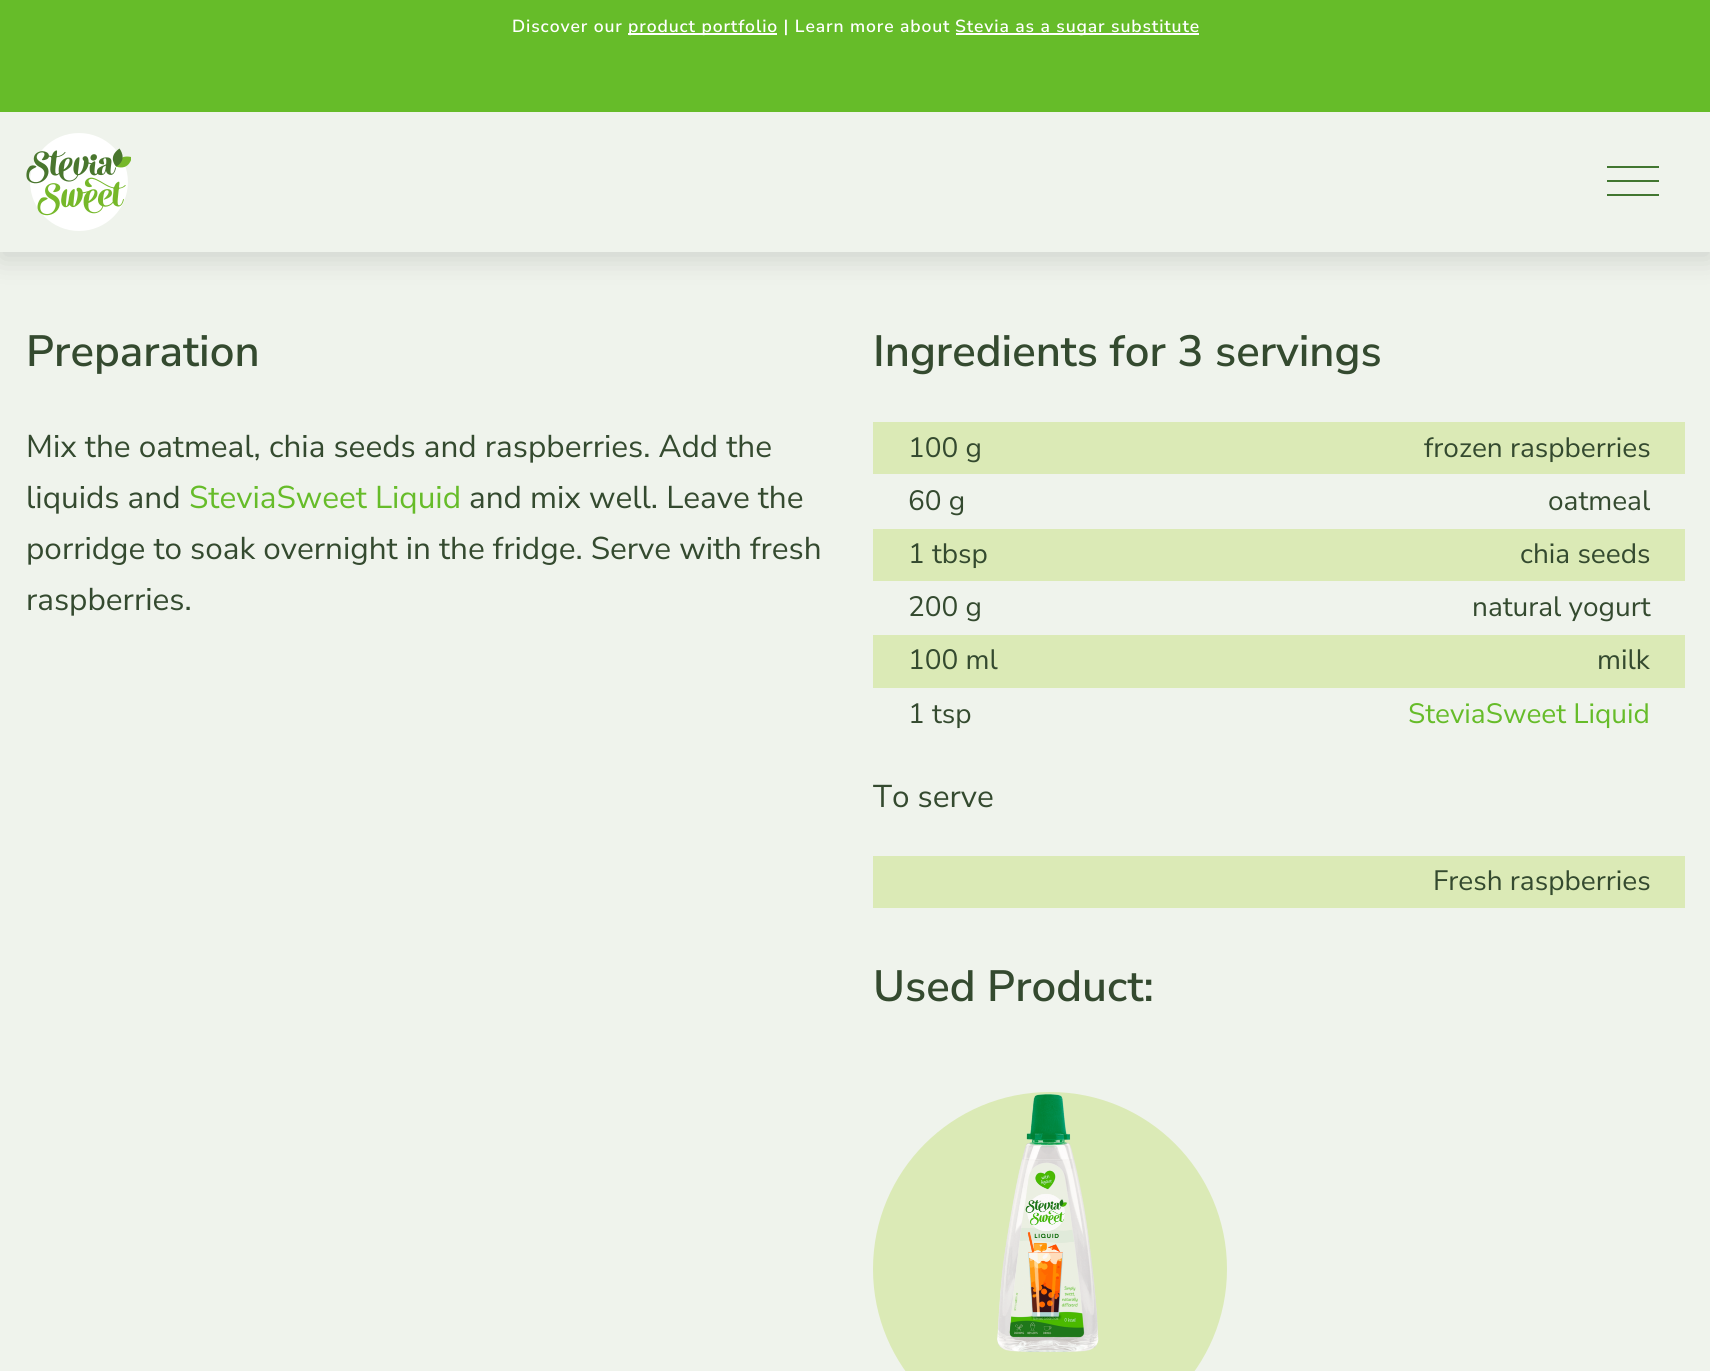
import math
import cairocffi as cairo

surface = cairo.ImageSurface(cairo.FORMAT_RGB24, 1710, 1371)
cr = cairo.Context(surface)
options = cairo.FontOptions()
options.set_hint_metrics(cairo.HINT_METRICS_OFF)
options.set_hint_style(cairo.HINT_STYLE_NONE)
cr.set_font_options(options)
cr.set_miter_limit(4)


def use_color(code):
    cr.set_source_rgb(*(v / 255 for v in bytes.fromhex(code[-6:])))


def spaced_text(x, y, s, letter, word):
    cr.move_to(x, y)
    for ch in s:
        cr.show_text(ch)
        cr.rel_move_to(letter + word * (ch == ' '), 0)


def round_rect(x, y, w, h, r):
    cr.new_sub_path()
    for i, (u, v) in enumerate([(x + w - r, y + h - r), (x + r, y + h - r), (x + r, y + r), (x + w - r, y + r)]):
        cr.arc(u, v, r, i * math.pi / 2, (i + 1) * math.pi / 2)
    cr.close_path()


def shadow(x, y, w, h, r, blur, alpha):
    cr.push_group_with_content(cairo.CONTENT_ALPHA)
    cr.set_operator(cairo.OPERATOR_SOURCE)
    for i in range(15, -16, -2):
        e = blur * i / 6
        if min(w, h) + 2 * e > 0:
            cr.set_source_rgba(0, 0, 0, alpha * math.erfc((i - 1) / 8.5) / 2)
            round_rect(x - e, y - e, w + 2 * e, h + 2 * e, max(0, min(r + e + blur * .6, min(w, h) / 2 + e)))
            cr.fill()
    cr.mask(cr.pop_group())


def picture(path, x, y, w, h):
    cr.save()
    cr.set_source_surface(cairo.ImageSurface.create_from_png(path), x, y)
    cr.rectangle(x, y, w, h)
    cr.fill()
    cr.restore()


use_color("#eff3ec")
cr.paint()
use_color("#000000")
shadow(0, 7, 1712, 252, 0, 14, 0.14)
use_color("#eff3ec")
cr.rectangle(0, 112, 1710, 140)
cr.fill()
use_color("#66bc29")
cr.rectangle(0, 0, 1710, 112)
cr.fill()
cr.select_font_face("Nunito Sans SemiBold")
cr.set_font_size(17.5)
use_color("#ffffff")
spaced_text(512, 32, "Discover our", 0.9, 0)
cr.rectangle(628, 33, 149, 2)
cr.fill()
spaced_text(628, 32, "product portfolio | Learn more about", 0.9, 0)
cr.rectangle(956, 33, 243, 2)
cr.fill()
spaced_text(955, 32, "Stevia as a sugar substitute", 0.9, 0)
picture("img1.png", 26, 133, 105, 98)
use_color("#417630")
cr.rectangle(1607, 166, 52, 2)
cr.fill()
cr.rectangle(1607, 180, 52, 2)
cr.fill()
cr.rectangle(1607, 194, 52, 2)
cr.fill()
cr.set_font_size(43.75)
use_color("#344a2f")
cr.move_to(26, 366)
cr.show_text("Preparation")
cr.select_font_face("Nunito Sans")
cr.set_font_size(31.5)
cr.move_to(26, 457)
cr.show_text("Mix the oatmeal, chia seeds and raspberries. Add the")
cr.move_to(26, 508)
cr.show_text("liquids and")
use_color("#66bc29")
cr.move_to(189, 508)
cr.show_text("SteviaSweet Liquid")
use_color("#344a2f")
cr.move_to(469, 508)
cr.show_text("and mix well. Leave the")
cr.move_to(26, 559)
cr.show_text("porridge to soak overnight in the fridge. Serve with fresh")
cr.move_to(26, 610)
cr.show_text("raspberries.")
cr.select_font_face("Nunito Sans SemiBold")
cr.set_font_size(43.75)
cr.move_to(873, 366)
cr.show_text("Ingredients for 3 servings")
use_color("#dbeab6")
cr.rectangle(873, 422, 812, 52)
cr.fill()
cr.select_font_face("Nunito Sans")
cr.set_font_size(28)
use_color("#344a2f")
cr.move_to(908, 457)
cr.show_text("100 g")
cr.move_to(1424, 457)
cr.show_text("frozen raspberries")
cr.move_to(908, 510)
cr.show_text("60 g")
cr.move_to(1548, 510)
cr.show_text("oatmeal")
use_color("#dbeab6")
cr.rectangle(873, 529, 812, 52)
cr.fill()
use_color("#344a2f")
cr.move_to(908, 563)
cr.show_text("1 tbsp")
cr.move_to(1520, 563)
cr.show_text("chia seeds")
cr.move_to(908, 616)
cr.show_text("200 g")
cr.move_to(1472, 616)
cr.show_text("natural yogurt")
use_color("#dbeab6")
cr.rectangle(873, 635, 812, 53)
cr.fill()
use_color("#344a2f")
cr.move_to(908, 669)
cr.show_text("100 ml")
cr.move_to(1597, 669)
cr.show_text("milk")
cr.move_to(908, 723)
cr.show_text("1 tsp")
use_color("#66bc29")
cr.move_to(1408, 723)
cr.show_text("SteviaSweet Liquid")
cr.set_font_size(31.5)
use_color("#344a2f")
cr.move_to(873, 807)
cr.show_text("To serve")
use_color("#dbeab6")
cr.rectangle(873, 856, 812, 52)
cr.fill()
cr.set_font_size(28)
use_color("#344a2f")
cr.move_to(1433, 890)
cr.show_text("Fresh raspberries")
cr.select_font_face("Nunito Sans SemiBold")
cr.set_font_size(43.75)
cr.move_to(873, 1001)
cr.show_text("Used Product:")
use_color("#dbeab6")
cr.new_path()
cr.arc(1050, 1269, 177, 0, 2 * math.pi)
cr.fill()
picture("img2.png", 997, 1094, 102, 258)
surface.write_to_png("result.png")
